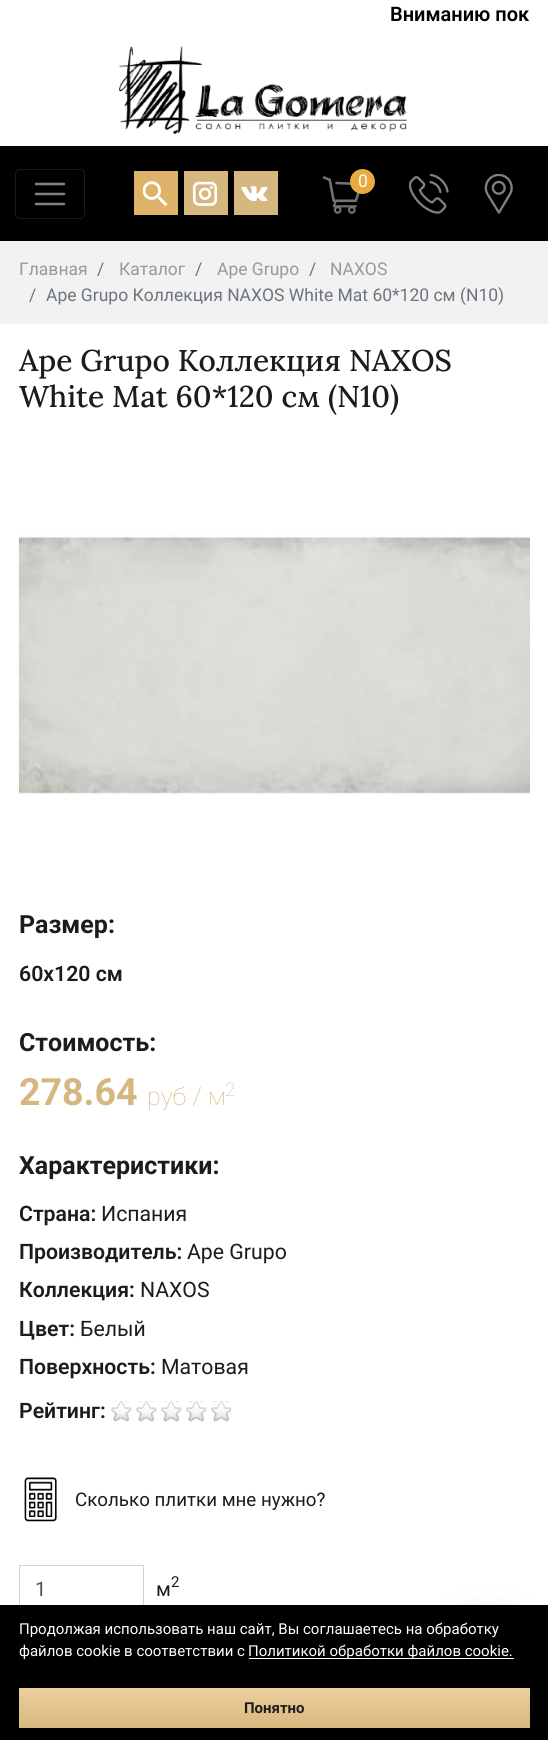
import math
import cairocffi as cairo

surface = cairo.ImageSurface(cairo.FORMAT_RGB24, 548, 1740)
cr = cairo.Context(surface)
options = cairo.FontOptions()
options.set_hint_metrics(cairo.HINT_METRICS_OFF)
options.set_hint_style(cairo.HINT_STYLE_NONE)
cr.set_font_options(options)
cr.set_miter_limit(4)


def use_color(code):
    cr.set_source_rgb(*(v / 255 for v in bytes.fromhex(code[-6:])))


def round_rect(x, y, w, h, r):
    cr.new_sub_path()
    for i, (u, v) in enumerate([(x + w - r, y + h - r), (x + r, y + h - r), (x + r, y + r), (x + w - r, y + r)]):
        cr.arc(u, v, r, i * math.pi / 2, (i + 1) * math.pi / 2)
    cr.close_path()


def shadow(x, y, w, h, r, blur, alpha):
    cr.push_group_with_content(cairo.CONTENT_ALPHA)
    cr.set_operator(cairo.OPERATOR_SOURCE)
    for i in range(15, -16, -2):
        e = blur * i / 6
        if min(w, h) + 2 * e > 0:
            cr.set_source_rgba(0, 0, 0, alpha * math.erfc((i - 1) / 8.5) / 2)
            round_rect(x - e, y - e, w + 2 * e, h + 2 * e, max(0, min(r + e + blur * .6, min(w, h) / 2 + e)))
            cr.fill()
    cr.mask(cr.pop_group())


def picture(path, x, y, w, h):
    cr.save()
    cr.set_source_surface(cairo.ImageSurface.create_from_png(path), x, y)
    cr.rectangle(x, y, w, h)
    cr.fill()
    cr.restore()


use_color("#ffffff")
cr.paint()
cr.select_font_face("Roboto SemiBold")
cr.set_font_size(20)
use_color("#000000")
cr.move_to(390, 21)
cr.show_text("Вниманию пок")
picture("img1.png", 119, 46, 289, 88)
cr.rectangle(0, 146, 548, 95)
cr.fill()
round_rect(15.5, 169.5, 69, 49, 4.5)
use_color("#1a1a1a")
cr.set_line_width(1)
cr.stroke()
cr.new_path()
cr.move_to(36, 184)
cr.line_to(64, 184)
cr.move_to(36, 194)
cr.line_to(64, 194)
cr.move_to(36, 204)
cr.line_to(64, 204)
use_color("#808080")
cr.set_line_width(2.5)
cr.set_line_cap(cairo.LINE_CAP_ROUND)
cr.stroke()
use_color("#deb269")
cr.rectangle(134, 171, 44, 44)
cr.fill()
picture("img2.png", 143, 181, 25, 25)
use_color("#d6b780")
cr.rectangle(184, 171, 44, 44)
cr.fill()
picture("img3.png", 193, 181, 24, 25)
cr.rectangle(234, 171, 44, 44)
cr.fill()
picture("img4.png", 241, 186, 27, 15)
picture("img5.png", 323, 176, 37, 38)
use_color("#e9aa40")
cr.arc(362.5, 181.5, 12.5, 0, 2 * math.pi)
cr.fill()
cr.select_font_face("Roboto")
cr.set_font_size(17.5)
use_color("#ffffff")
cr.move_to(358, 187)
cr.show_text("0")
picture("img6.png", 409, 174, 40, 40)
picture("img7.png", 484, 174, 29, 40)
use_color("#f2f2f2")
cr.rectangle(0, 241, 548, 83)
cr.fill()
use_color("#999999")
cr.move_to(19, 275)
cr.show_text("Главная")
use_color("#6c757d")
cr.move_to(97, 275)
cr.show_text("/")
use_color("#999999")
cr.move_to(119, 275)
cr.show_text("Каталог")
use_color("#6c757d")
cr.move_to(195, 275)
cr.show_text("/")
use_color("#999999")
cr.move_to(217, 275)
cr.show_text("Ape Grupo")
use_color("#6c757d")
cr.move_to(309, 275)
cr.show_text("/")
use_color("#999999")
cr.move_to(330, 275)
cr.show_text("NAXOS")
use_color("#6c757d")
cr.move_to(29, 301)
cr.show_text("/")
cr.move_to(46, 301)
cr.show_text("Ape Grupo Коллекция NAXOS White Mat 60*120 см (N10)")
cr.select_font_face("Lora Medium")
cr.set_font_size(30)
use_color("#1c1c1c")
cr.move_to(19, 371)
cr.show_text("Ape Grupo Коллекция NAXOS")
cr.move_to(19, 407)
cr.show_text("White Mat 60*120 см (N10)")
picture("img8.png", 18, 531, 512, 263)
cr.select_font_face("Roboto", cairo.FONT_SLANT_NORMAL, cairo.FONT_WEIGHT_BOLD)
cr.set_font_size(25)
cr.move_to(19, 933)
cr.show_text("Размер:")
cr.select_font_face("Roboto SemiBold")
cr.set_font_size(21.25)
cr.move_to(19, 981)
cr.show_text("60x120 см")
cr.select_font_face("Roboto", cairo.FONT_SLANT_NORMAL, cairo.FONT_WEIGHT_BOLD)
cr.set_font_size(25)
cr.move_to(19, 1051)
cr.show_text("Стоимость:")
cr.set_font_size(37.5)
use_color("#d6b780")
cr.move_to(19, 1105)
cr.show_text("278.64")
cr.select_font_face("Roboto Thin")
cr.set_font_size(25)
cr.move_to(147, 1105)
cr.show_text("руб / м")
cr.set_font_size(18.75)
cr.move_to(225, 1096)
cr.show_text("2")
cr.select_font_face("Roboto", cairo.FONT_SLANT_NORMAL, cairo.FONT_WEIGHT_BOLD)
cr.set_font_size(25)
use_color("#1c1c1c")
cr.move_to(19, 1174)
cr.show_text("Характеристики:")
cr.select_font_face("Roboto SemiBold")
cr.set_font_size(21.25)
cr.move_to(19, 1221)
cr.show_text("Страна:")
cr.select_font_face("Roboto")
cr.move_to(101, 1221)
cr.show_text("Испания")
cr.select_font_face("Roboto SemiBold")
cr.move_to(19, 1259)
cr.show_text("Производитель:")
cr.select_font_face("Roboto")
cr.move_to(187, 1259)
cr.show_text("Ape Grupo")
cr.select_font_face("Roboto SemiBold")
cr.move_to(19, 1297)
cr.show_text("Коллекция:")
cr.select_font_face("Roboto")
cr.move_to(140, 1297)
cr.show_text("NAXOS")
cr.select_font_face("Roboto SemiBold")
cr.move_to(19, 1336)
cr.show_text("Цвет:")
cr.select_font_face("Roboto")
cr.move_to(80, 1336)
cr.show_text("Белый")
cr.select_font_face("Roboto SemiBold")
cr.move_to(19, 1374)
cr.show_text("Поверхность:")
cr.select_font_face("Roboto")
cr.move_to(161, 1374)
cr.show_text("Матовая")
cr.select_font_face("Roboto SemiBold")
cr.move_to(19, 1418)
cr.show_text("Рейтинг:")
picture("img9.png", 111, 1401, 121, 21)
picture("img10.png", 24, 1477, 33, 45)
cr.select_font_face("Roboto")
cr.set_font_size(18.75)
cr.move_to(75, 1506)
cr.show_text("Сколько плитки мне нужно?")
cr.rectangle(19.5, 1565.5, 124, 47)
use_color("#ced4da")
cr.set_line_width(1)
cr.set_line_cap(cairo.LINE_CAP_BUTT)
cr.stroke()
cr.set_font_size(20)
use_color("#495057")
cr.move_to(35, 1596)
cr.show_text("1")
use_color("#1c1c1c")
cr.move_to(156, 1596)
cr.show_text("м")
cr.set_font_size(15)
cr.move_to(171, 1587)
cr.show_text("2")
use_color("#d6b780")
shadow(451, 1630, 75, 75, 37.5, 19, 1)
use_color("#000000")
cr.rectangle(0, 1605, 548, 135)
cr.fill()
use_color("#ffffff")
cr.move_to(19, 1634)
cr.show_text("Продолжая использовать наш сайт, Вы соглашаетесь на обработку")
cr.move_to(19, 1656)
cr.show_text("файлов cookie в соответствии с")
cr.rectangle(249, 1658, 265, 1)
cr.fill()
cr.move_to(248, 1656)
cr.show_text("Политикой обработки файлов cookie.")
gradient = cairo.LinearGradient(274, 1688, 274, 1728)
gradient.add_color_stop_rgba(0, 0.925, 0.812, 0.612, 1)
gradient.add_color_stop_rgba(1, 0.839, 0.718, 0.502, 1)
cr.set_source(gradient)
cr.rectangle(19, 1688, 511, 40)
cr.fill()
cr.select_font_face("Roboto", cairo.FONT_SLANT_NORMAL, cairo.FONT_WEIGHT_BOLD)
use_color("#1c1c1c")
cr.move_to(244, 1713)
cr.show_text("Понятно")
surface.write_to_png("result.png")
